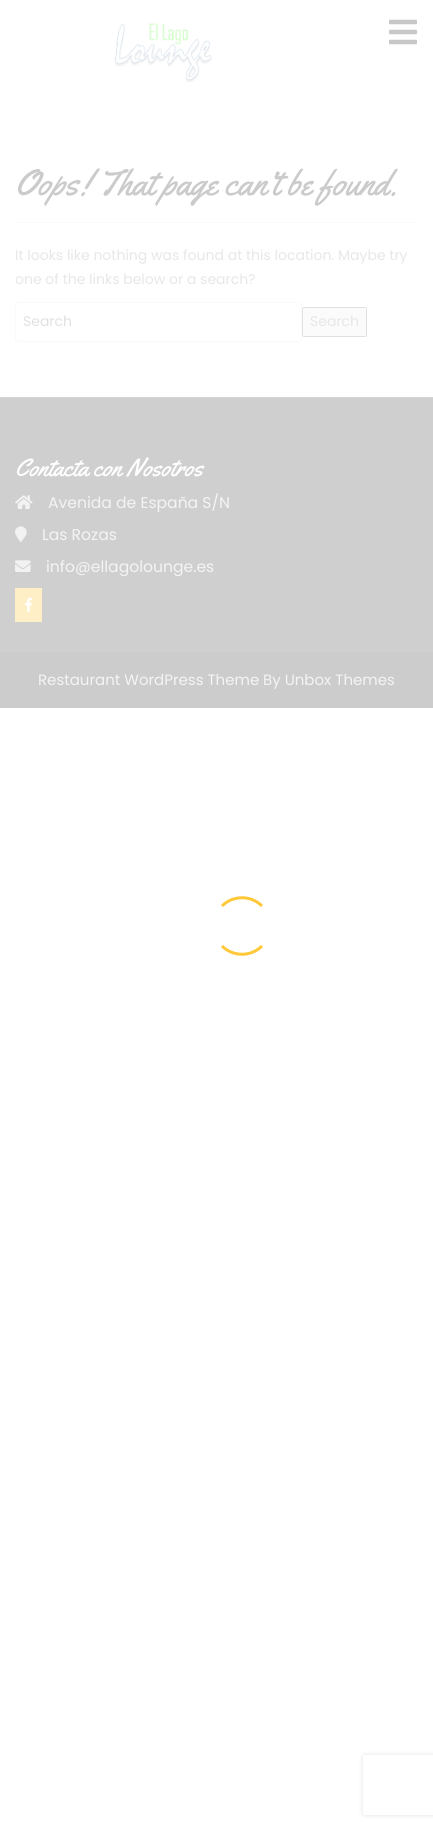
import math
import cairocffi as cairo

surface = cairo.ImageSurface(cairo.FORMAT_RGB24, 433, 1829)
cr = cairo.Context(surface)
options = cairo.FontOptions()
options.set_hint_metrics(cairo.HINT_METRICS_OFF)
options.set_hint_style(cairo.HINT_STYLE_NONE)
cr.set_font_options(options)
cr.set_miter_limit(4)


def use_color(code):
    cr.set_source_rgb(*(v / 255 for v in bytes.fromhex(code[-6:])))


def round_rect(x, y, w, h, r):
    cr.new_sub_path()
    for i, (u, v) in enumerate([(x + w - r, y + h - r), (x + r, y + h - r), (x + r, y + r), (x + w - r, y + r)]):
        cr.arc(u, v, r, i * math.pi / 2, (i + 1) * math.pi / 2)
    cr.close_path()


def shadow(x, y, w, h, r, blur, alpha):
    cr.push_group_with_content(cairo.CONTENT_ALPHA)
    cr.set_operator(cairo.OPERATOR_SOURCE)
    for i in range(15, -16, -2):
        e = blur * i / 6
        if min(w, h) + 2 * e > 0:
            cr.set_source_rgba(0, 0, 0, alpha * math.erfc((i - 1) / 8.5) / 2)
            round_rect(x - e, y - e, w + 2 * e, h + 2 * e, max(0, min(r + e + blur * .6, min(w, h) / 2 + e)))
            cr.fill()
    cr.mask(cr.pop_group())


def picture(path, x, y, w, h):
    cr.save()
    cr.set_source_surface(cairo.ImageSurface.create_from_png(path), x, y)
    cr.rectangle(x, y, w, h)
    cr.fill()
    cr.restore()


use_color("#ffffff")
cr.paint()
picture("img1.png", 114, 23, 98, 60)
picture("img2.png", 389, 19, 28, 26)
use_color("#fbfbfb")
cr.rectangle(15, 222, 403, 1)
cr.fill()
cr.select_font_face("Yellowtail")
cr.set_font_size(36)
use_color("#cbcbcb")
cr.move_to(15, 195)
cr.show_text("Oops! That page can’t be found.")
cr.select_font_face("Poppins")
cr.set_font_size(14)
use_color("#e7e7e7")
cr.move_to(15, 260)
cr.show_text("It looks like nothing was found at this location. Maybe try")
cr.move_to(15, 284)
cr.show_text("one of the links below or a search?")
round_rect(15.5, 302.5, 286, 39, 2.5)
use_color("#fafafa")
cr.set_line_width(1)
cr.stroke()
use_color("#e1e1e1")
cr.move_to(23, 326)
cr.show_text("Search")
use_color("#fbfbfb")
round_rect(302.5, 307.5, 64, 29, 1.5)
cr.fill_preserve()
use_color("#e1e1e1")
cr.stroke()
use_color("#e7e7e7")
cr.move_to(310, 326)
cr.show_text("Search")
use_color("#cccccc")
cr.rectangle(0, 652, 433, 56)
cr.fill()
use_color("#cfcfcf")
cr.rectangle(0, 398, 433, 254)
cr.fill()
use_color("#d4d4d4")
cr.rectangle(0, 397, 433, 1)
cr.fill()
cr.select_font_face("Yellowtail")
cr.set_font_size(25)
use_color("#ffffff")
cr.move_to(15, 476)
cr.show_text("Contacta con Nosotros")
picture("img3.png", 15, 495, 18, 14)
cr.select_font_face("Poppins")
cr.set_font_size(15.6)
use_color("#f4f4f4")
cr.move_to(48, 508)
cr.show_text("Avenida de España S/N")
picture("img4.png", 15, 526, 12, 16)
cr.move_to(42, 540)
cr.show_text("Las Rozas")
picture("img5.png", 15, 560, 16, 12)
cr.move_to(46, 572)
cr.show_text("info@ellagolounge.es")
use_color("#ffefc7")
cr.rectangle(15, 588, 27, 34)
cr.fill()
picture("img6.png", 25, 597, 8, 15)
cr.set_font_size(15)
use_color("#f4f4f4")
cr.move_to(38, 685)
cr.show_text("Restaurant WordPress Theme")
cr.move_to(263, 685)
cr.show_text("By Unbox Themes")
cr.new_path()
cr.move_to(222, 906)
cr.curve_to(233, 895, 251, 895, 262, 906)
cr.move_to(262, 946)
cr.curve_to(251, 957, 233, 957, 222, 946)
use_color("#ffc838")
cr.set_line_width(3)
cr.stroke()
cr.save()
cr.set_fill_rule(cairo.FILL_RULE_EVEN_ODD)
cr.new_path()
cr.move_to(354, 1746)
cr.line_to(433, 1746)
cr.line_to(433, 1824)
cr.line_to(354, 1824)
cr.close_path()
cr.move_to(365, 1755)
cr.line_to(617, 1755)
cr.curve_to(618, 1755, 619, 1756, 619, 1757)
cr.line_to(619, 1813)
cr.curve_to(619, 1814, 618, 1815, 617, 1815)
cr.line_to(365, 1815)
cr.curve_to(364, 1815, 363, 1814, 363, 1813)
cr.line_to(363, 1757)
cr.curve_to(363, 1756, 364, 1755, 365, 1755)
cr.close_path()
cr.clip()
use_color("#e3e3e3")
shadow(363, 1755, 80, 60, 2, 2.5, 1)
cr.restore()
surface.write_to_png("result.png")
